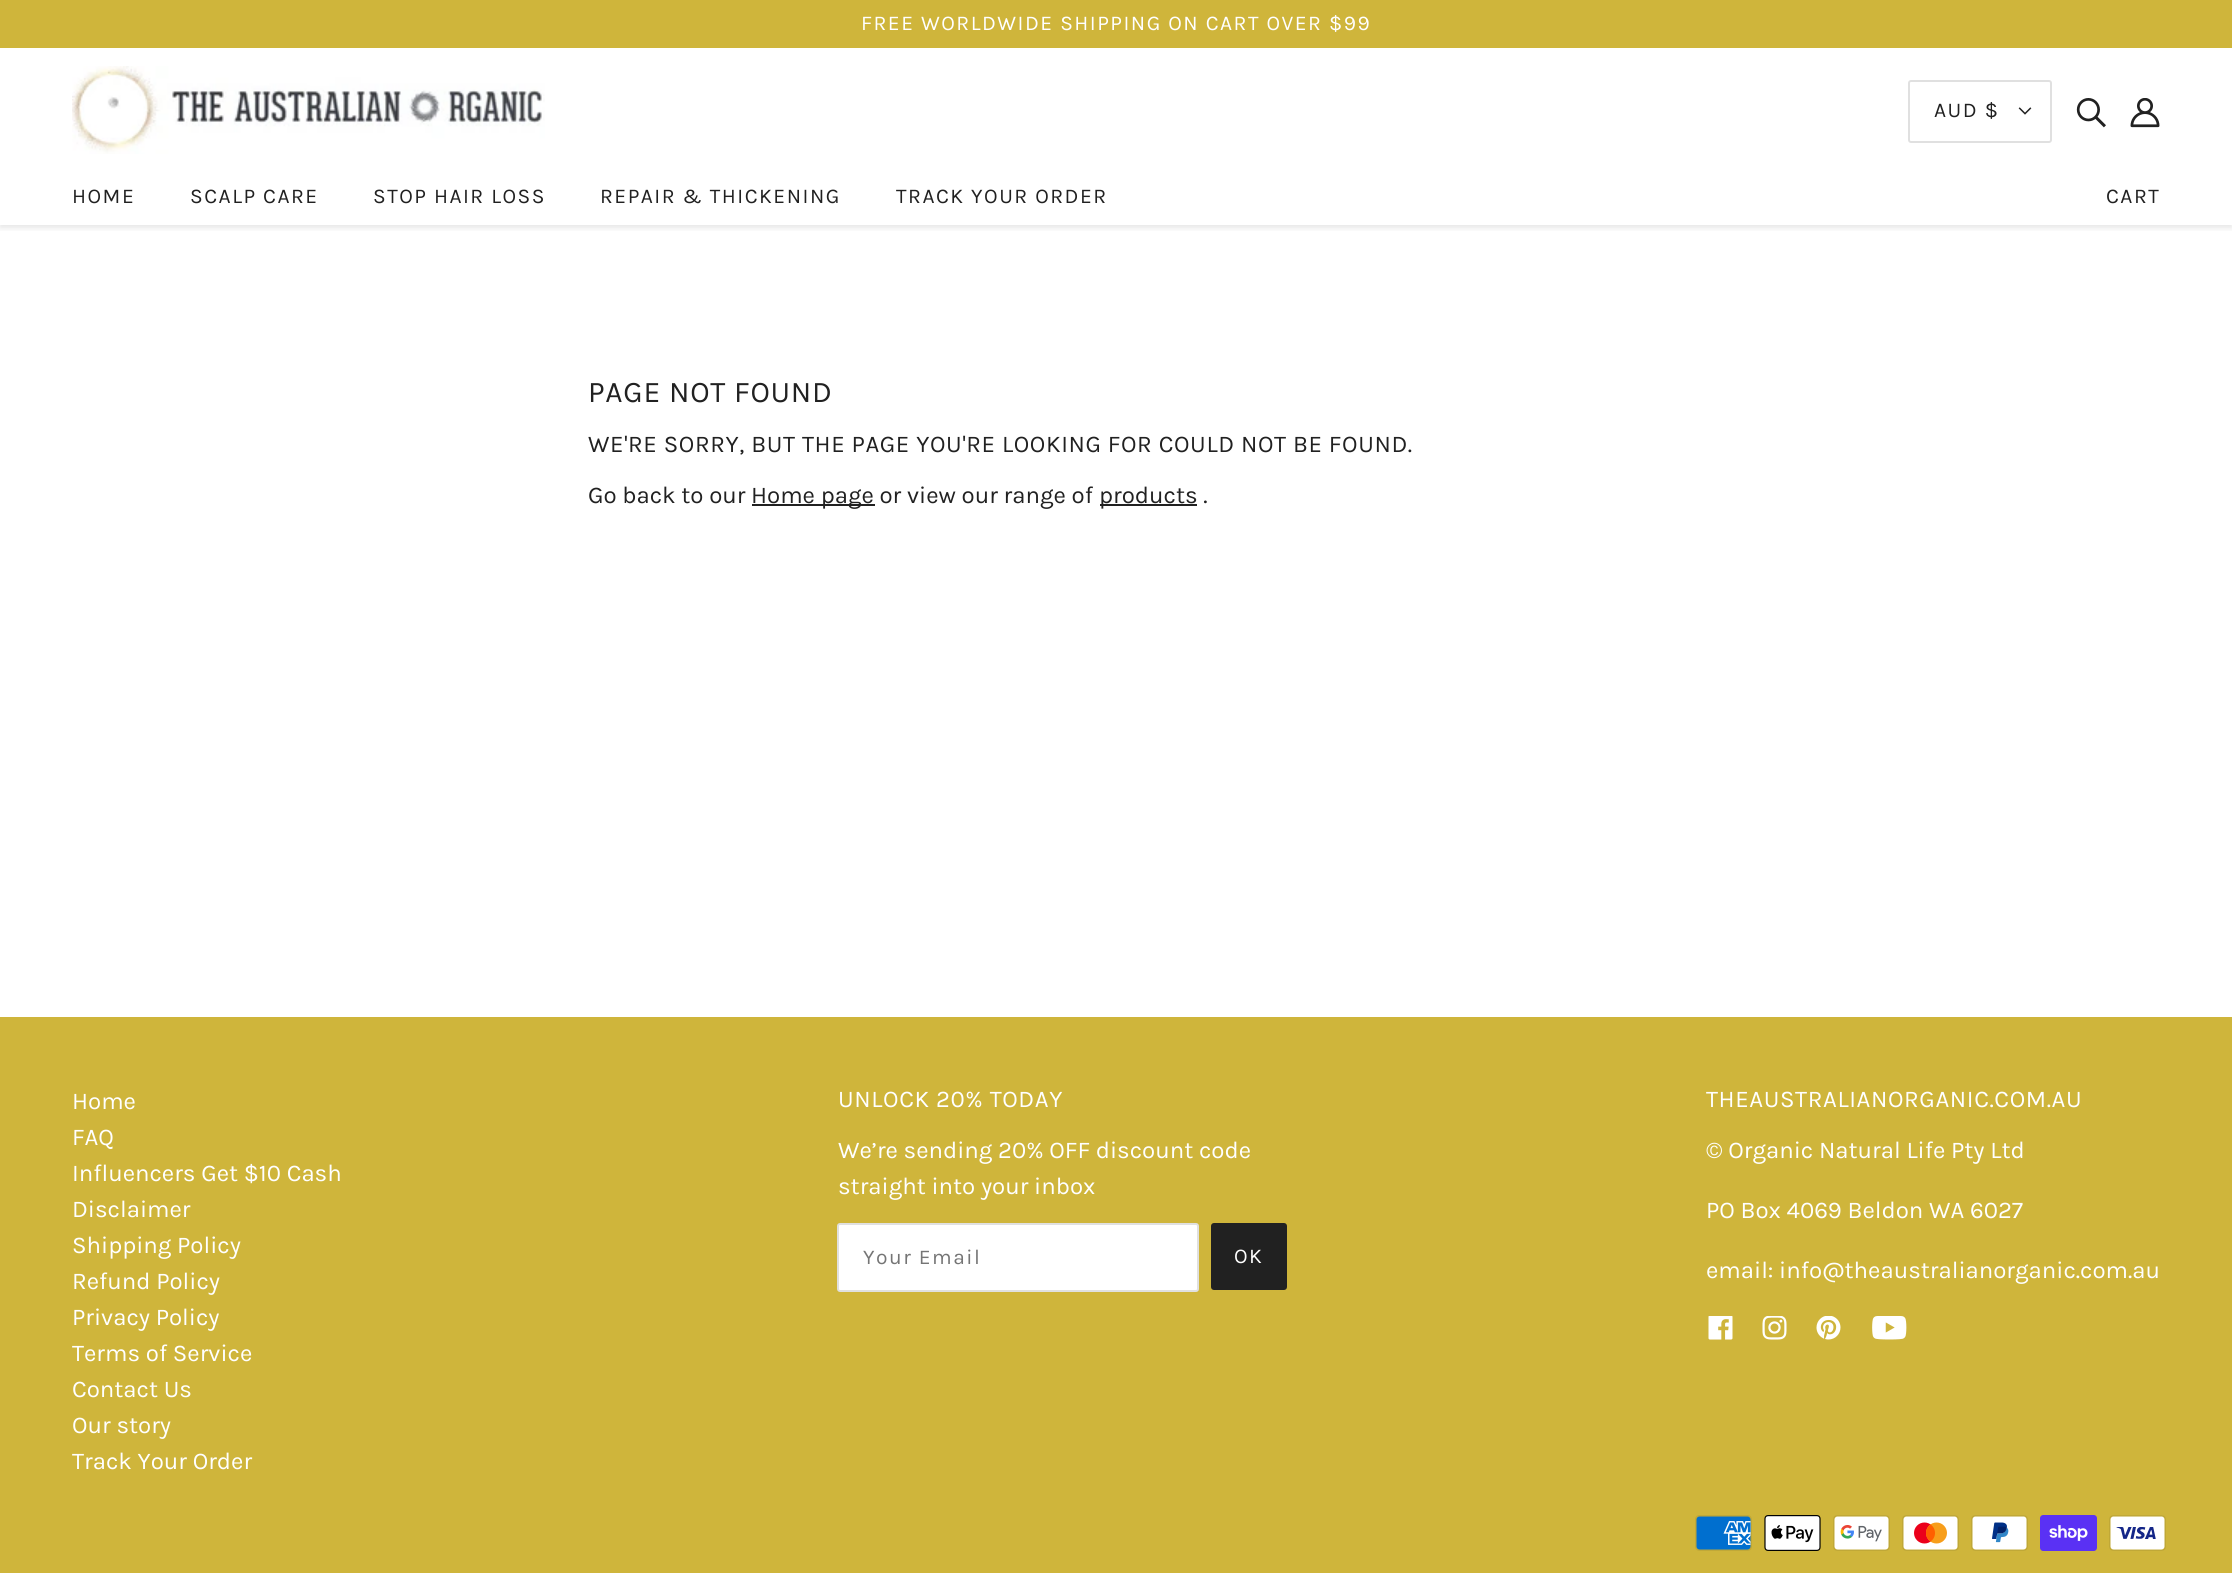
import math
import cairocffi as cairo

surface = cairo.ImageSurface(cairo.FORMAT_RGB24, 2232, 1573)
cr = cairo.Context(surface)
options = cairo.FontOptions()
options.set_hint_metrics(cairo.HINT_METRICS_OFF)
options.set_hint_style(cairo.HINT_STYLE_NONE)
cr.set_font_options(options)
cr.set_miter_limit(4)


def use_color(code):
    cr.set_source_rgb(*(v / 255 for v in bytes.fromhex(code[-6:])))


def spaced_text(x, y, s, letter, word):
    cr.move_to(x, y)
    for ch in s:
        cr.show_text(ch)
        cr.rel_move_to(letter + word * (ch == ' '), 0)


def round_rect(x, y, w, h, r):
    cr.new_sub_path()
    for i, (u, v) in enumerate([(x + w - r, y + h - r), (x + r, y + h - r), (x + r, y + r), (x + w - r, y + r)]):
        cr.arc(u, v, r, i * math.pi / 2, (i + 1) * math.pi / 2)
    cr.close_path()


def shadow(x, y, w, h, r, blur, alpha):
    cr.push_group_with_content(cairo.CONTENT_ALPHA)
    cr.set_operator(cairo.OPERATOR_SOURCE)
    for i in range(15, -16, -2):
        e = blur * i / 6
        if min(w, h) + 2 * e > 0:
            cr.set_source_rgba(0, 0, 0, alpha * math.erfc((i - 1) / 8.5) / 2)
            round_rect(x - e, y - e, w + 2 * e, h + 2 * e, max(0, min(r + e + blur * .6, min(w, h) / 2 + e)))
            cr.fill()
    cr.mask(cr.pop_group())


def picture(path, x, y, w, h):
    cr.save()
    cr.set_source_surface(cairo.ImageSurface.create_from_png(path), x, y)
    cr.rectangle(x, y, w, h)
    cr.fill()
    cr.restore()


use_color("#ffffff")
cr.paint()
cr.save()
cr.rectangle(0, 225, 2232, 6)
cr.clip()
use_color("#000000")
shadow(0, 51, 2232, 177, 0, 3, 0.1)
cr.restore()
use_color("#cfb53b")
cr.rectangle(0, 0, 2232, 48)
cr.fill()
cr.select_font_face("Karla")
cr.set_font_size(21)
use_color("#ffffff")
spaced_text(861, 30, "FREE WORLDWIDE SHIPPING ON CART OVER $99", 1.5, 0)
picture("img1.png", 72, 66, 473, 88)
round_rect(1909, 81, 142, 61, 2)
use_color("#e0e0e0")
cr.stroke()
use_color("#212121")
spaced_text(1934, 117, "AUD $", 1.5, 0)
picture("img2.png", 2018, 107, 14, 8)
picture("img3.png", 2076, 98, 30, 30)
picture("img4.png", 2130, 98, 30, 30)
spaced_text(72, 203, "HOME", 1.5, 0)
spaced_text(190, 203, "SCALP CARE", 1.5, 0)
spaced_text(373, 203, "STOP HAIR LOSS", 1.5, 0)
spaced_text(600, 203, "REPAIR & THICKENING", 1.5, 0)
spaced_text(896, 203, "TRACK YOUR ORDER", 1.5, 0)
spaced_text(2106, 203, "CART", 1.5, 0)
cr.set_font_size(30)
spaced_text(588, 402, "PAGE NOT FOUND", 0.75, 0)
cr.set_font_size(24)
spaced_text(588, 452, "WE'RE SORRY, BUT THE PAGE YOU'RE LOOKING FOR COULD NOT BE FOUND.", 0.6, 0)
cr.move_to(588, 503)
cr.show_text("Go back to our")
cr.rectangle(752, 504, 123, 2)
cr.fill()
cr.move_to(751, 503)
cr.show_text("Home page or view our range of")
cr.rectangle(1100, 504, 97, 2)
cr.fill()
cr.move_to(1099, 503)
cr.show_text("products .")
use_color("#cfb53b")
cr.rectangle(0, 1017, 2232, 556)
cr.fill()
use_color("#ffffff")
cr.move_to(72, 1109)
cr.show_text("Home")
cr.move_to(72, 1145)
cr.show_text("FAQ")
cr.move_to(72, 1181)
cr.show_text("Influencers Get $10 Cash")
cr.move_to(72, 1217)
cr.show_text("Disclaimer")
cr.move_to(72, 1253)
cr.show_text("Shipping Policy")
cr.move_to(72, 1289)
cr.show_text("Refund Policy")
cr.move_to(72, 1325)
cr.show_text("Privacy Policy")
cr.move_to(72, 1361)
cr.show_text("Terms of Service")
cr.move_to(72, 1397)
cr.show_text("Contact Us")
cr.move_to(72, 1433)
cr.show_text("Our story")
cr.move_to(72, 1469)
cr.show_text("Track Your Order")
spaced_text(838, 1107, "UNLOCK 20% TODAY", 0.6, 0)
cr.move_to(838, 1158)
cr.show_text("We’re sending 20% OFF discount code")
cr.move_to(838, 1194)
cr.show_text("straight into your inbox")
round_rect(838, 1224, 360, 67, 2)
cr.fill_preserve()
use_color("#e0e0e0")
cr.stroke()
cr.set_font_size(21)
use_color("#757575")
spaced_text(863, 1264, "Your Email", 1.5, 0)
use_color("#212121")
round_rect(1211, 1223, 76, 67, 3)
cr.fill()
use_color("#ffffff")
spaced_text(1234, 1263, "OK", 1.5, 0)
cr.set_font_size(24)
spaced_text(1706, 1107, "THEAUSTRALIANORGANIC.COM.AU", 0.6, 0)
cr.move_to(1706, 1158)
cr.show_text("© Organic Natural Life Pty Ltd")
cr.move_to(1706, 1218)
cr.show_text("PO Box 4069 Beldon WA 6027")
cr.move_to(1706, 1278)
cr.show_text("email: info@theaustralianorganic.com.au")
picture("img5.png", 1708, 1316, 25, 24)
picture("img6.png", 1762, 1316, 25, 24)
picture("img7.png", 1816, 1316, 25, 24)
picture("img8.png", 1872, 1316, 35, 24)
picture("img9.png", 1695, 1515, 57, 36)
picture("img10.png", 1764, 1515, 57, 36)
picture("img11.png", 1833, 1515, 57, 36)
picture("img12.png", 1902, 1515, 57, 36)
picture("img13.png", 1971, 1515, 57, 36)
picture("img14.png", 2040, 1515, 57, 36)
picture("img15.png", 2109, 1515, 57, 36)
surface.write_to_png("result.png")
